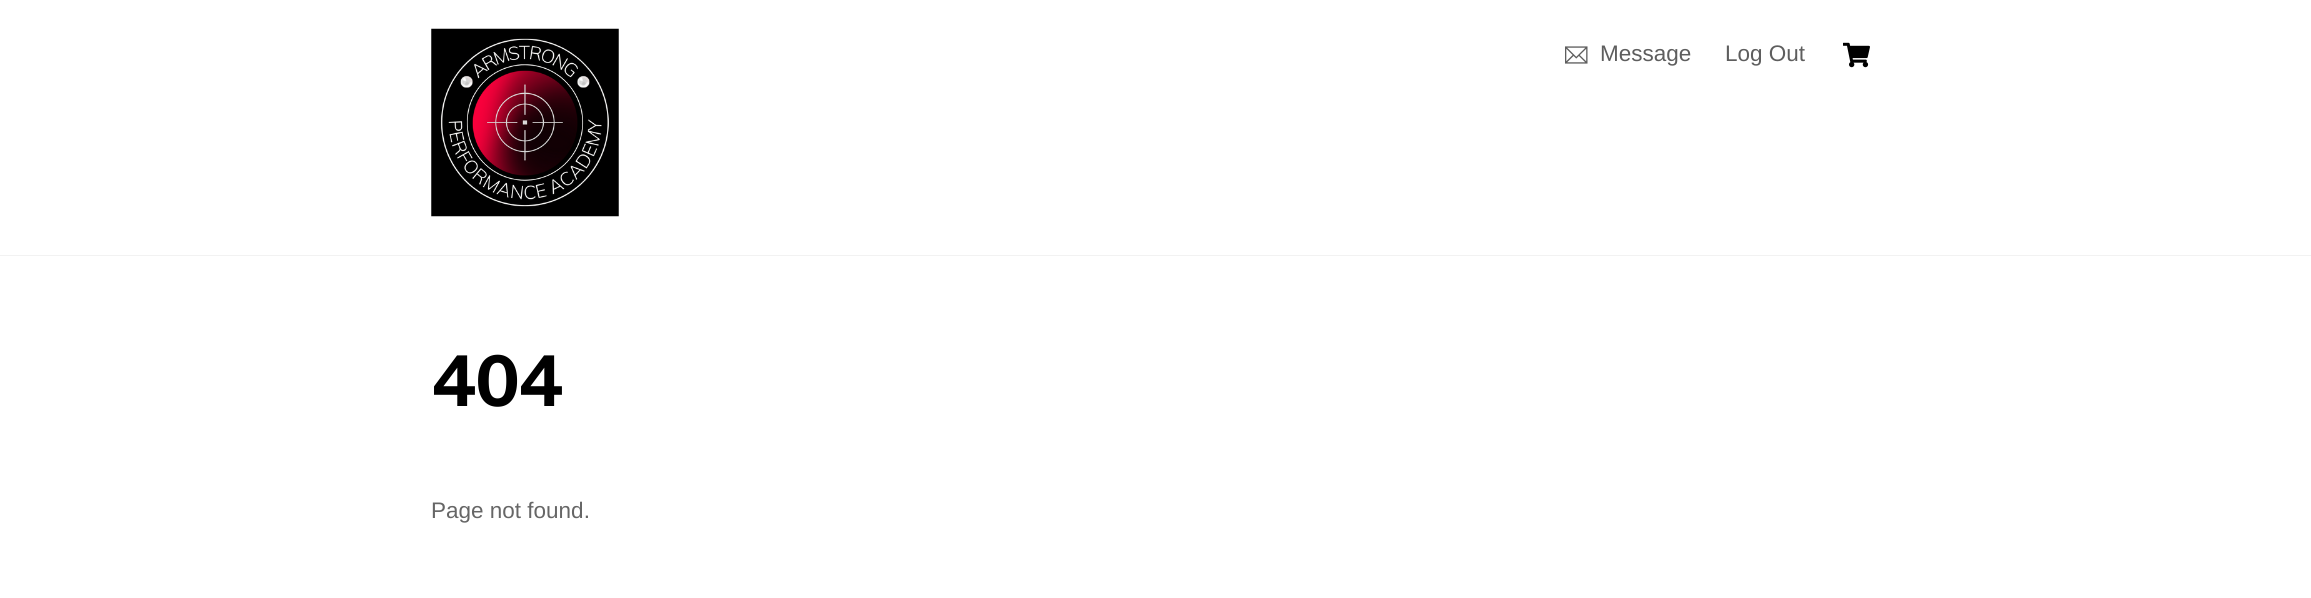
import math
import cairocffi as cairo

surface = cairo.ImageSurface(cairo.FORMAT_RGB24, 2311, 598)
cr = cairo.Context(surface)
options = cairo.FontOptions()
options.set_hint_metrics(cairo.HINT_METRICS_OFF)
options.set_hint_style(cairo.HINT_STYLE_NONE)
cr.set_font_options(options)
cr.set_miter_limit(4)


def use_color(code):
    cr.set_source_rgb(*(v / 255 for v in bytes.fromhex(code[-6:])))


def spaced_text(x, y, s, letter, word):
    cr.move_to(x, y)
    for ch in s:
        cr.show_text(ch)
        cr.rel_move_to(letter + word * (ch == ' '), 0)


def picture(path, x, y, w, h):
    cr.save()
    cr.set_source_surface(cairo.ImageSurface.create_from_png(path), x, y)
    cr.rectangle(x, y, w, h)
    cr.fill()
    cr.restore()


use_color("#ffffff")
cr.paint()
use_color("#f2f2f2")
cr.rectangle(0, 255, 2311, 1)
cr.fill()
picture("img1.png", 431, 28, 188, 189)
picture("img2.png", 1565, 46, 23, 18)
cr.select_font_face("Liberation Sans")
cr.set_font_size(22.5)
use_color("#5e5e5e")
cr.move_to(1600, 61)
cr.show_text("Message")
cr.move_to(1725, 61)
cr.show_text("Log Out")
picture("img3.png", 1843, 42, 27, 26)
cr.select_font_face("Public Sans", cairo.FONT_SLANT_NORMAL, cairo.FONT_WEIGHT_BOLD)
cr.set_font_size(70)
use_color("#000000")
spaced_text(431, 406, "404", -2, 0)
cr.select_font_face("Liberation Sans")
cr.set_font_size(22.5)
use_color("#666666")
cr.move_to(431, 518)
cr.show_text("Page not found.")
surface.write_to_png("result.png")
